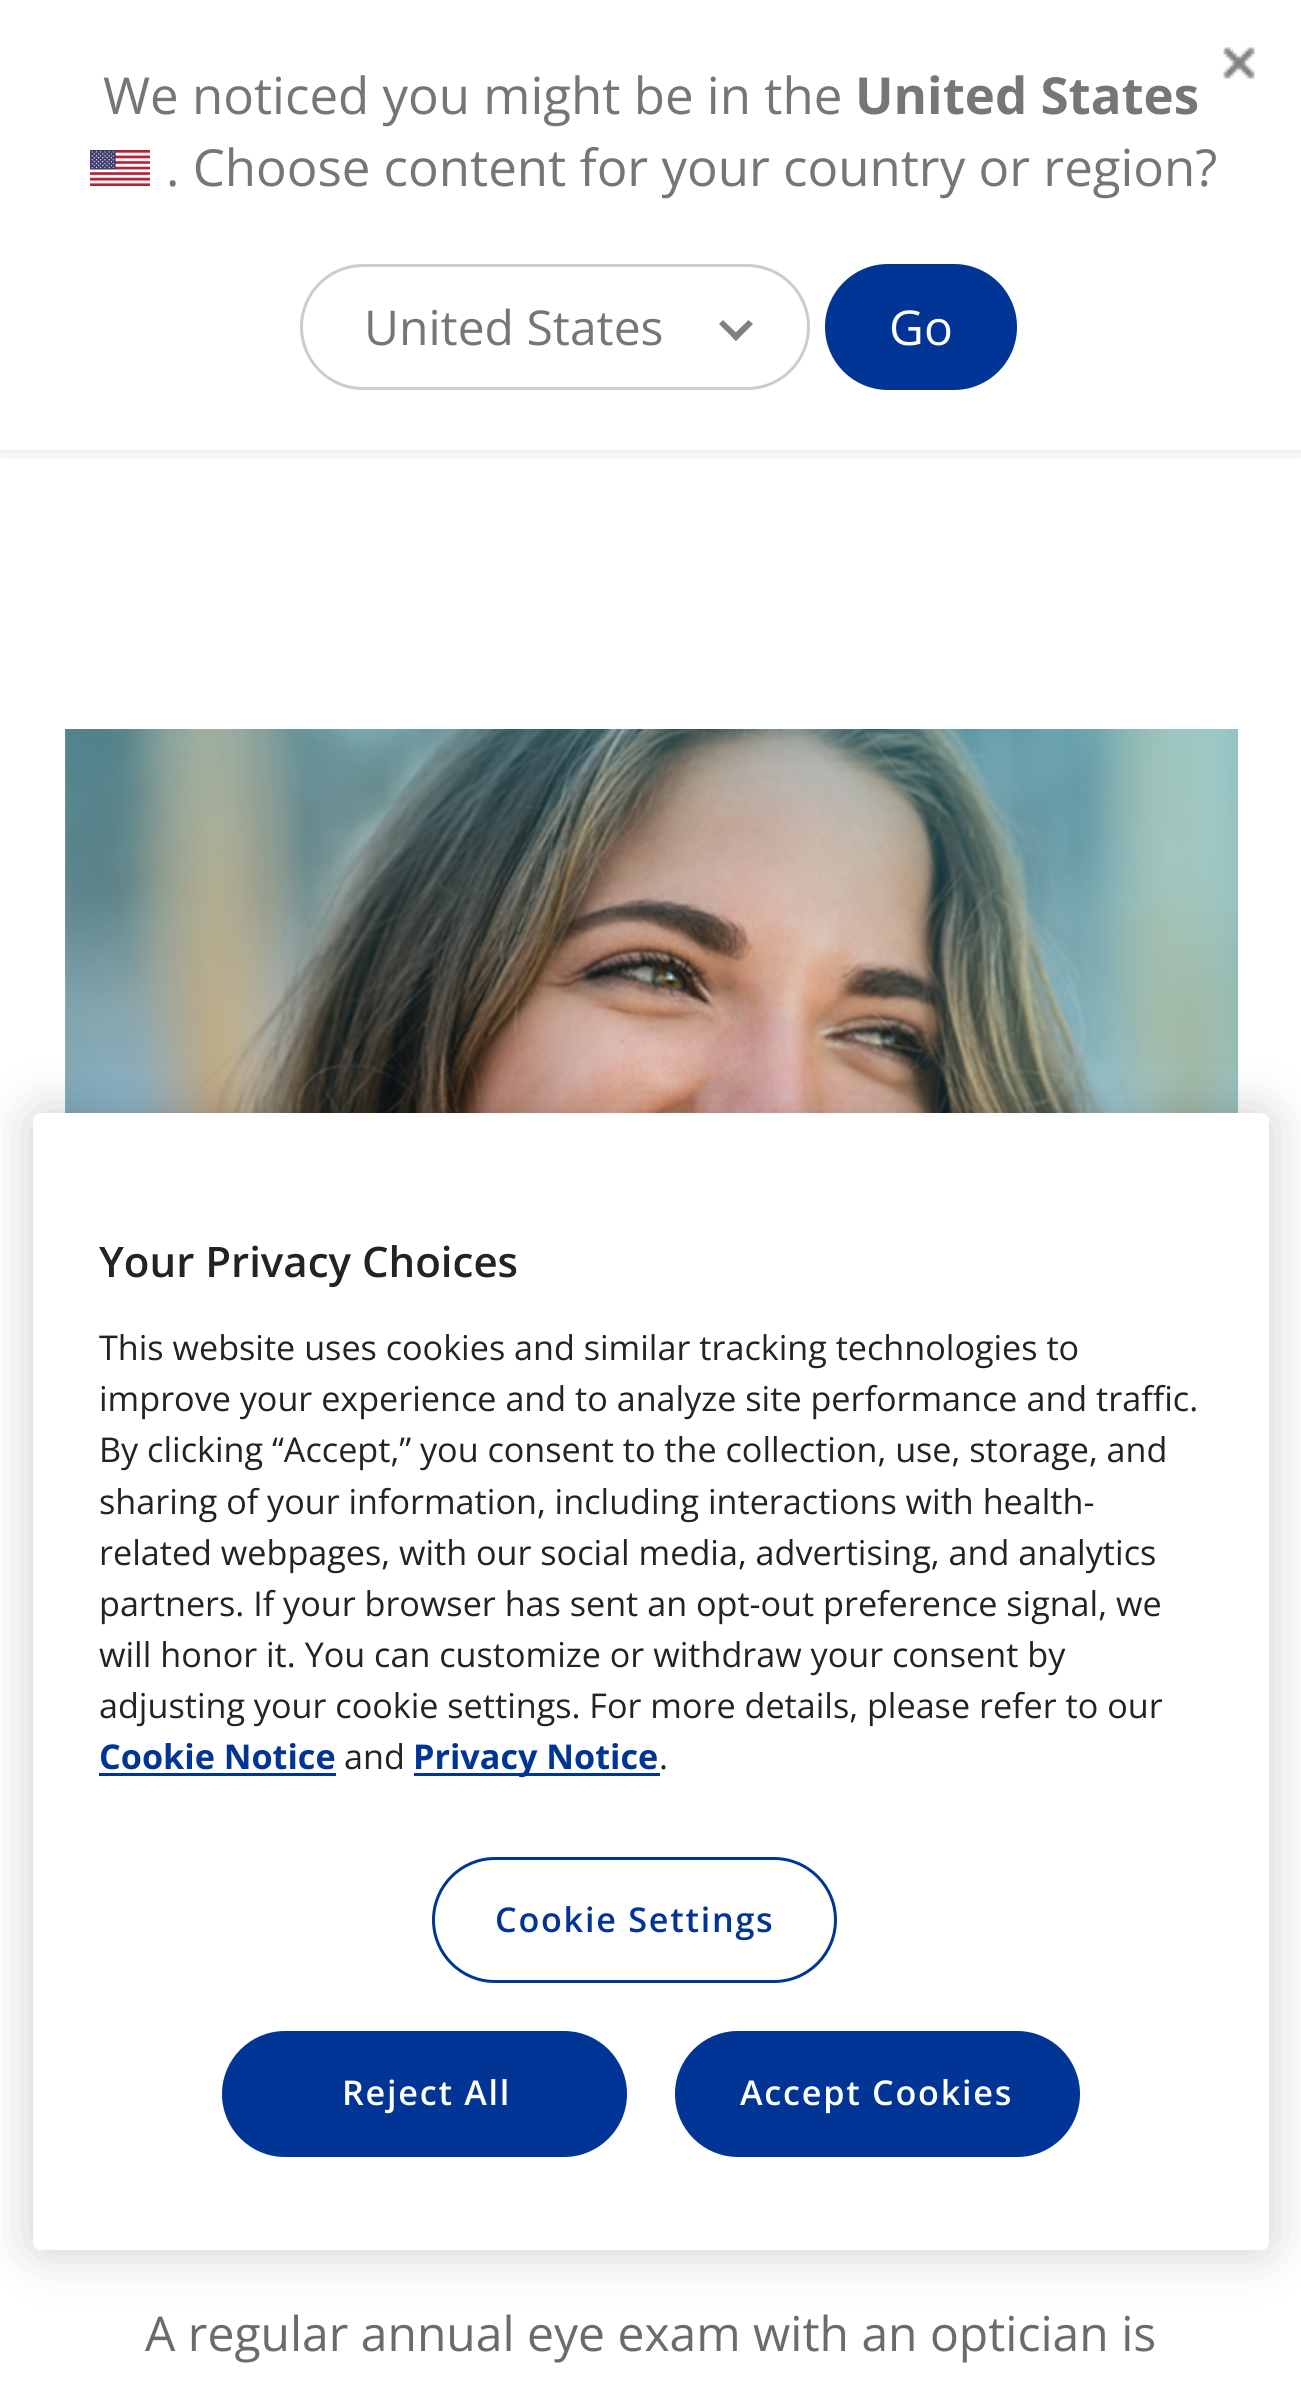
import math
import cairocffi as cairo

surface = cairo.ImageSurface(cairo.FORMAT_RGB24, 1301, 2397)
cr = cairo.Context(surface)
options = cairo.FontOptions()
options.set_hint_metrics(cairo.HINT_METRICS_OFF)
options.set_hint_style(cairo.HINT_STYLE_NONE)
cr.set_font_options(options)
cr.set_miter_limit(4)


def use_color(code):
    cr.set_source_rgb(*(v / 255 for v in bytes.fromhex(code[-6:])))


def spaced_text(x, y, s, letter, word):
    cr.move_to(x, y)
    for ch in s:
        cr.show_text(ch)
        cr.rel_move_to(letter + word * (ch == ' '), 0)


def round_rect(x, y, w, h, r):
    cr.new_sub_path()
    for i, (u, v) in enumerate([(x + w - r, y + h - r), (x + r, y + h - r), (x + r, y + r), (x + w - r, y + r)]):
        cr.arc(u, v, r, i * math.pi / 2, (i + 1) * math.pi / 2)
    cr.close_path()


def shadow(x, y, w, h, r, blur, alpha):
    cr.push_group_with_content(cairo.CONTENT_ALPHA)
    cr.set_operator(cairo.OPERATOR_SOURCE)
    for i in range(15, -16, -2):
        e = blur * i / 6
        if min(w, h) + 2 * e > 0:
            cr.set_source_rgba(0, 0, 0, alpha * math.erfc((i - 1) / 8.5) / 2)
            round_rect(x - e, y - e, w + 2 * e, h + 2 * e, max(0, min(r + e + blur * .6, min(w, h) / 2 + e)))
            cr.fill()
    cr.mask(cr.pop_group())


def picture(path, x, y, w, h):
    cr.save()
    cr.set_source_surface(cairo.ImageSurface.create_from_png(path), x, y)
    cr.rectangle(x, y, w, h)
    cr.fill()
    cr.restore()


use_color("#ffffff")
cr.paint()
cr.save()
cr.rectangle(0, 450, 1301, 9)
cr.clip()
use_color("#000000")
shadow(0, 3, 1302, 450, 0, 7.5, 0.1)
cr.restore()
picture("img1.png", 1223, 47, 32, 32)
cr.select_font_face("Open Sans")
cr.set_font_size(51)
use_color("#767676")
cr.move_to(103, 114)
cr.show_text("We noticed you might be in the")
cr.select_font_face("Open Sans", cairo.FONT_SLANT_NORMAL, cairo.FONT_WEIGHT_BOLD)
cr.move_to(855, 114)
cr.show_text("United States")
picture("img2.png", 90, 150, 60, 36)
cr.select_font_face("Open Sans")
cr.move_to(166, 186)
cr.show_text(". Choose content for your country or region?")
round_rect(301.5, 265.5, 507, 123, 61.5)
use_color("#cccccc")
cr.set_line_width(3)
cr.stroke()
cr.set_font_size(48)
use_color("#767676")
cr.move_to(364, 345)
cr.show_text("United States")
use_color("#808080")
cr.new_path()
cr.move_to(748.5, 320)
cr.line_to(753, 324)
cr.line_to(736, 341)
cr.line_to(731.5, 336.5)
cr.close_path()
cr.fill()
cr.new_path()
cr.move_to(723, 320)
cr.line_to(740, 336.5)
cr.line_to(736, 341)
cr.line_to(719, 324)
cr.close_path()
cr.fill()
use_color("#003595")
round_rect(826.5, 265.5, 189, 123, 61.5)
cr.fill_preserve()
cr.stroke()
use_color("#ffffff")
cr.move_to(889, 345)
cr.show_text("Go")
picture("img3.png", 65, 729, 1174, 384)
use_color("#000000")
shadow(33, 1113, 1236, 1137, 8, 27, 0.2)
use_color("#ffffff")
round_rect(33, 1113, 1236, 1137, 8)
cr.fill()
cr.select_font_face("Open Sans SemiBold")
cr.set_font_size(42)
use_color("#232323")
cr.move_to(99, 1277)
cr.show_text("Your Privacy Choices")
cr.select_font_face("Open Sans")
cr.set_font_size(34.15)
cr.move_to(99, 1360)
cr.show_text("This website uses cookies and similar tracking technologies to")
cr.move_to(99, 1411)
cr.show_text("improve your experience and to analyze site performance and traffic.")
cr.move_to(99, 1462)
cr.show_text("By clicking “Accept,” you consent to the collection, use, storage, and")
cr.move_to(99, 1514)
cr.show_text("sharing of your information, including interactions with health-")
cr.move_to(99, 1565)
cr.show_text("related webpages, with our social media, advertising, and analytics")
cr.move_to(99, 1616)
cr.show_text("partners. If your browser has sent an opt-out preference signal, we")
cr.move_to(99, 1667)
cr.show_text("will honor it. You can customize or withdraw your consent by")
cr.move_to(99, 1718)
cr.show_text("adjusting your cookie settings. For more details, please refer to our")
cr.select_font_face("Open Sans", cairo.FONT_SLANT_NORMAL, cairo.FONT_WEIGHT_BOLD)
use_color("#003595")
cr.move_to(99, 1769)
cr.show_text("Cookie Notice")
cr.rectangle(99, 1773, 237, 3)
cr.fill()
cr.select_font_face("Open Sans")
use_color("#232323")
cr.move_to(344, 1769)
cr.show_text("and")
use_color("#003595")
cr.rectangle(414, 1773, 246, 3)
cr.fill()
cr.select_font_face("Open Sans", cairo.FONT_SLANT_NORMAL, cairo.FONT_WEIGHT_BOLD)
cr.move_to(413, 1769)
cr.show_text("Privacy Notice")
cr.select_font_face("Open Sans")
use_color("#232323")
cr.move_to(659, 1769)
cr.show_text(".")
round_rect(433.5, 1858.5, 402, 123, 61.5)
use_color("#003595")
cr.stroke()
cr.select_font_face("Open Sans SemiBold")
spaced_text(495, 1932, "Cookie Settings", 1.75, 0)
round_rect(223.5, 2032.5, 402, 123, 61.5)
cr.fill_preserve()
cr.stroke()
use_color("#ffffff")
spaced_text(342, 2105, "Reject All", 1.75, 0)
use_color("#003595")
round_rect(676.5, 2032.5, 402, 123, 61.5)
cr.fill_preserve()
cr.stroke()
use_color("#ffffff")
spaced_text(740, 2105, "Accept Cookies", 1.75, 0)
cr.select_font_face("Open Sans")
cr.set_font_size(48)
use_color("#6b6b6b")
cr.move_to(145, 2351)
cr.show_text("A regular annual eye exam with an optician is")
surface.write_to_png("result.png")
